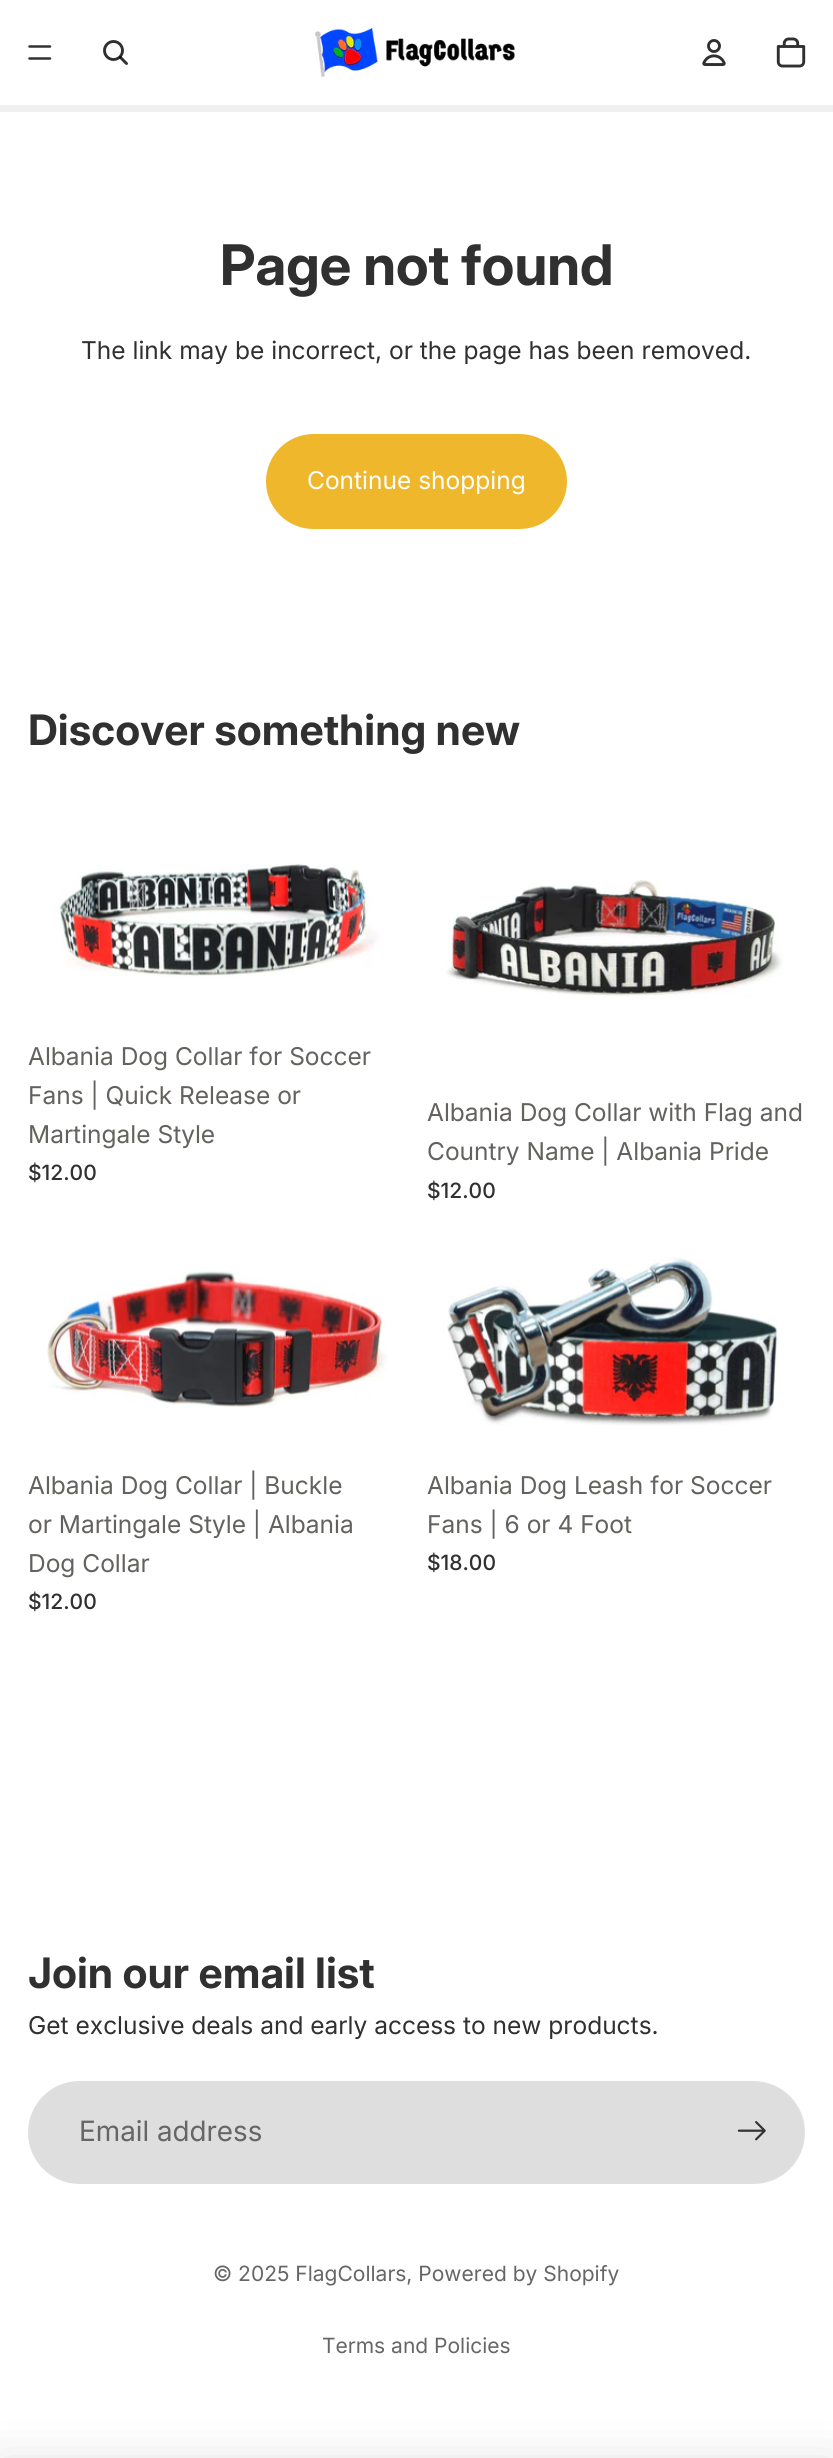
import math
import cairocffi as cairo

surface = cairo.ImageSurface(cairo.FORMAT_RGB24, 833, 2458)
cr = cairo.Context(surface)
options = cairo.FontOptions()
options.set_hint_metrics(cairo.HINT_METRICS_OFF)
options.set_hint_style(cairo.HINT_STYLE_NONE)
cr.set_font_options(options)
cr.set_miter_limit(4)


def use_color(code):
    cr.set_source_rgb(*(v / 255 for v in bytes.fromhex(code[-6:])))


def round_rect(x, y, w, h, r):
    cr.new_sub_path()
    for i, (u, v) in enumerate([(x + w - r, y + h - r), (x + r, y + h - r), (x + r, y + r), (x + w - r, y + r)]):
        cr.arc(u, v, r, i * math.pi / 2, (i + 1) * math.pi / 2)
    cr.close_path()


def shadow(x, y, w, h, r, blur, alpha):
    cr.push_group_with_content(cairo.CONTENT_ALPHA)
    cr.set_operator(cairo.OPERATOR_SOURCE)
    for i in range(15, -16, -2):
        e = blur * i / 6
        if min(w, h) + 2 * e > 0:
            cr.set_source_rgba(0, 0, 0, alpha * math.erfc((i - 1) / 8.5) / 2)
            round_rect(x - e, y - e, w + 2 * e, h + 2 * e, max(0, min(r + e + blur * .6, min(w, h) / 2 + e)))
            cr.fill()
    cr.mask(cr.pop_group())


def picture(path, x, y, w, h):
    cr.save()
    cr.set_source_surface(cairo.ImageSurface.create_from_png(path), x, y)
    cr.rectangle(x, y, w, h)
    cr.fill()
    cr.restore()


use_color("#ffffff")
cr.paint()
use_color("#f0f0f0")
cr.rectangle(0, 105, 833, 7)
cr.fill()
cr.new_path()
cr.move_to(29.5, 46.5)
cr.line_to(50, 46.5)
cr.move_to(29.5, 58.5)
cr.line_to(50, 58.5)
use_color("#303030")
cr.set_line_width(2.5)
cr.set_line_cap(cairo.LINE_CAP_ROUND)
cr.stroke()
cr.arc(113.5, 50.5, 9, 0, 2 * math.pi)
cr.set_line_width(2.9)
cr.set_line_cap(cairo.LINE_CAP_BUTT)
cr.stroke()
cr.new_path()
cr.move_to(120.5, 57.5)
cr.line_to(126.5, 63.5)
cr.set_source_rgba(0, 0, 0, 0.81)
cr.set_line_cap(cairo.LINE_CAP_ROUND)
cr.set_line_join(cairo.LINE_JOIN_ROUND)
cr.stroke()
picture("img1.png", 315, 28, 200, 49)
picture("img2.png", 702, 39, 24, 27)
picture("img3.png", 776, 37, 30, 31)
cr.select_font_face("Inter", cairo.FONT_SLANT_NORMAL, cairo.FONT_WEIGHT_BOLD)
cr.set_font_size(56)
use_color("#303030")
cr.move_to(220, 285)
cr.show_text("Page not found")
cr.select_font_face("Inter")
cr.set_font_size(24.5)
cr.move_to(81, 359)
cr.show_text("The link may be incorrect, or the page has been removed.")
use_color("#efb72c")
round_rect(266, 434, 301, 95, 47.5)
cr.fill()
use_color("#ffffff")
cr.move_to(307, 489)
cr.show_text("Continue shopping")
cr.select_font_face("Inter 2", cairo.FONT_SLANT_NORMAL, cairo.FONT_WEIGHT_BOLD)
cr.set_font_size(42)
use_color("#303030")
cr.move_to(28, 745)
cr.show_text("Discover something new")
picture("img4.png", 58, 863, 322, 114)
cr.select_font_face("Inter")
cr.set_font_size(24.5)
use_color("#63625e")
cr.move_to(28, 1065)
cr.show_text("Albania Dog Collar for Soccer")
cr.move_to(28, 1104)
cr.show_text("Fans | Quick Release or")
cr.move_to(28, 1143)
cr.show_text("Martingale Style")
cr.select_font_face("Inter Medium")
cr.set_font_size(21)
use_color("#303030")
cr.move_to(28, 1180)
cr.show_text("$12.00")
picture("img5.png", 446, 880, 337, 118)
cr.select_font_face("Inter")
cr.set_font_size(24.5)
use_color("#63625e")
cr.move_to(427, 1121)
cr.show_text("Albania Dog Collar with Flag and")
cr.move_to(427, 1160)
cr.show_text("Country Name | Albania Pride")
cr.select_font_face("Inter Medium")
cr.set_font_size(21)
use_color("#303030")
cr.move_to(427, 1198)
cr.show_text("$12.00")
picture("img6.png", 47, 1270, 340, 137)
cr.select_font_face("Inter")
cr.set_font_size(24.5)
use_color("#63625e")
cr.move_to(28, 1494)
cr.show_text("Albania Dog Collar | Buckle")
cr.move_to(28, 1533)
cr.show_text("or Martingale Style | Albania")
cr.move_to(28, 1572)
cr.show_text("Dog Collar")
cr.select_font_face("Inter Medium")
cr.set_font_size(21)
use_color("#303030")
cr.move_to(28, 1609)
cr.show_text("$12.00")
picture("img7.png", 447, 1257, 332, 169)
cr.select_font_face("Inter")
cr.set_font_size(24.5)
use_color("#63625e")
cr.move_to(427, 1494)
cr.show_text("Albania Dog Leash for Soccer")
cr.move_to(427, 1533)
cr.show_text("Fans | 6 or 4 Foot")
cr.select_font_face("Inter Medium")
cr.set_font_size(21)
use_color("#303030")
cr.move_to(427, 1570)
cr.show_text("$18.00")
cr.select_font_face("Inter 2", cairo.FONT_SLANT_NORMAL, cairo.FONT_WEIGHT_BOLD)
cr.set_font_size(42)
cr.move_to(28, 1988)
cr.show_text("Join our email list")
cr.select_font_face("Inter")
cr.set_font_size(24.5)
cr.move_to(28, 2034)
cr.show_text("Get exclusive deals and early access to new products.")
use_color("#dedede")
round_rect(29, 2082, 775, 101, 50.5)
cr.fill_preserve()
use_color("#dfdfdf")
cr.set_line_width(2)
cr.set_line_cap(cairo.LINE_CAP_BUTT)
cr.set_line_join(cairo.LINE_JOIN_MITER)
cr.stroke()
cr.select_font_face("Inter 2")
cr.set_font_size(28)
use_color("#666666")
cr.move_to(79, 2141)
cr.show_text("Email address")
picture("img8.png", 737, 2121, 29, 20)
cr.select_font_face("Inter")
cr.set_font_size(21)
cr.move_to(213, 2281)
cr.show_text("© 2025 FlagCollars, Powered by Shopify")
cr.move_to(322, 2353)
cr.show_text("Terms and Policies")
use_color("#000000")
shadow(0, 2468, 833, 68, 0, 26, 0.15)
surface.write_to_png("result.png")
